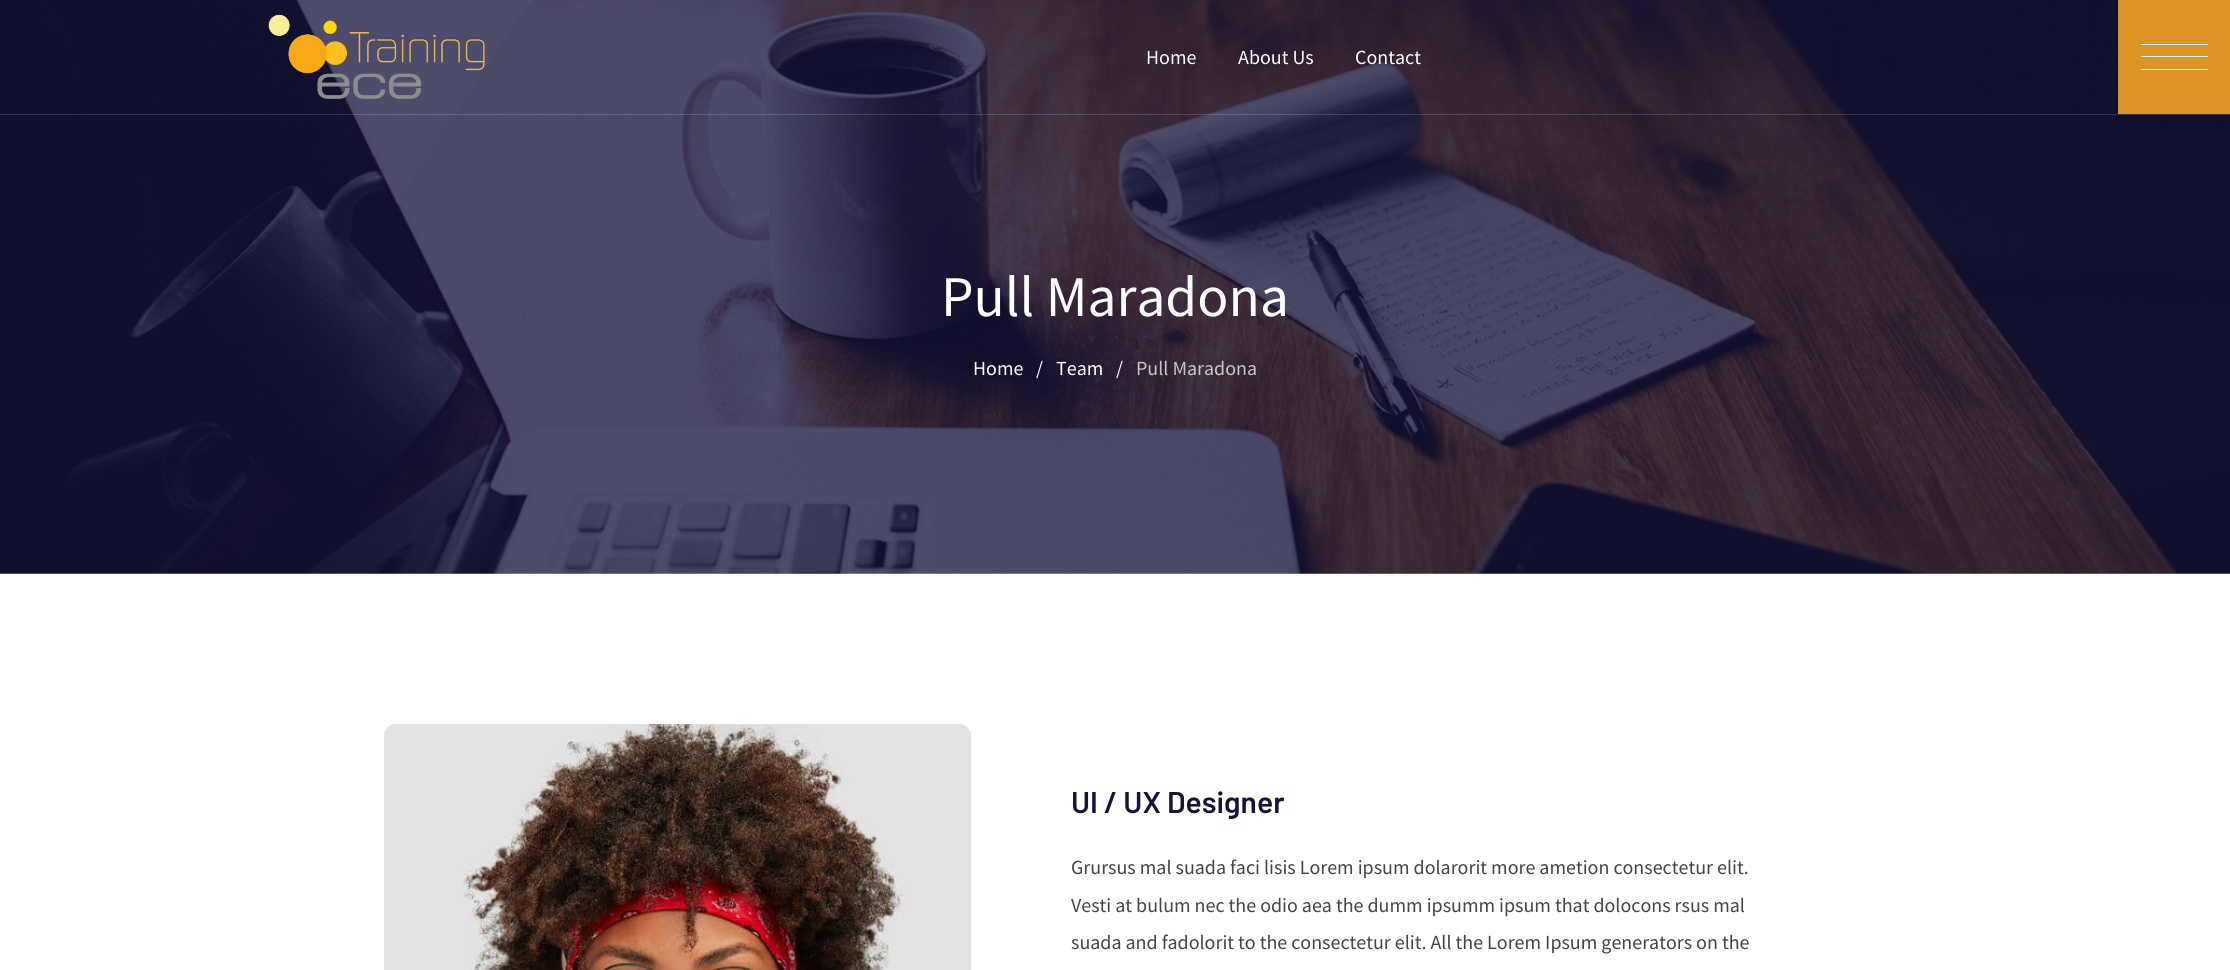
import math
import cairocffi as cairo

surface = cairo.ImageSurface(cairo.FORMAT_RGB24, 2230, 970)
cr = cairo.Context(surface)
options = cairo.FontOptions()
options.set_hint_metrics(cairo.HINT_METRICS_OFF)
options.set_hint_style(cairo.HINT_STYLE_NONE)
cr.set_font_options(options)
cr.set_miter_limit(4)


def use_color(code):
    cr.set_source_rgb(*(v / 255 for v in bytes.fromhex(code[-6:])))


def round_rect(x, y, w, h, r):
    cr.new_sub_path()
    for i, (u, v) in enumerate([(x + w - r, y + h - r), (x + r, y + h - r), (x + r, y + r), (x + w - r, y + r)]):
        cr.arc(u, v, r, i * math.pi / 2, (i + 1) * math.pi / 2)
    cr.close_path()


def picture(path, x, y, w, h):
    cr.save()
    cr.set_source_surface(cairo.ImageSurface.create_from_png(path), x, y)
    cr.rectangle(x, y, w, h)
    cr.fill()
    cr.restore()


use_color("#ffffff")
cr.paint()
picture("img2.png", 0, 0, 2230, 574)
cr.set_source_rgba(1, 1, 1, 0.15)
cr.rectangle(0, 114, 2230, 1)
cr.fill()
picture("img1.png", 268, 14, 217, 85)
cr.select_font_face("Source Sans Pro")
cr.set_font_size(20)
use_color("#ffffff")
cr.move_to(1146, 64)
cr.show_text("Home")
cr.move_to(1238, 64)
cr.show_text("About Us")
cr.move_to(1355, 64)
cr.show_text("Contact")
use_color("#dd9425")
cr.rectangle(2118, 0, 112, 114)
cr.fill()
use_color("#ffffff")
round_rect(2141, 44, 67, 1, 0.5)
cr.fill()
round_rect(2141, 56, 67, 1, 0.5)
cr.fill()
round_rect(2141, 69, 67, 1, 0.5)
cr.fill()
cr.set_font_size(57.5)
cr.move_to(941, 316)
cr.show_text("Pull Maradona")
cr.set_font_size(20)
cr.move_to(973, 375)
cr.show_text("Home")
cr.move_to(1036, 375)
cr.show_text("/")
cr.move_to(1056, 375)
cr.show_text("Team")
cr.move_to(1116, 375)
cr.show_text("/")
use_color("#c7c7c7")
cr.move_to(1136, 375)
cr.show_text("Pull Maradona")
picture("img3.png", 384, 723, 587, 247)
cr.select_font_face("Barlow SemiBold")
cr.set_font_size(30)
use_color("#14133b")
cr.move_to(1071, 813)
cr.show_text("UI / UX Designer")
cr.select_font_face("Source Sans Pro")
cr.set_font_size(20)
use_color("#444444")
cr.move_to(1071, 874)
cr.show_text("Grursus mal suada faci lisis Lorem ipsum dolarorit more ametion consectetur elit.")
cr.move_to(1071, 912)
cr.show_text("Vesti at bulum nec the odio aea the dumm ipsumm ipsum that dolocons rsus mal")
cr.move_to(1071, 949)
cr.show_text("suada and fadolorit to the consectetur elit. All the Lorem Ipsum generators on the")
surface.write_to_png("result.png")
